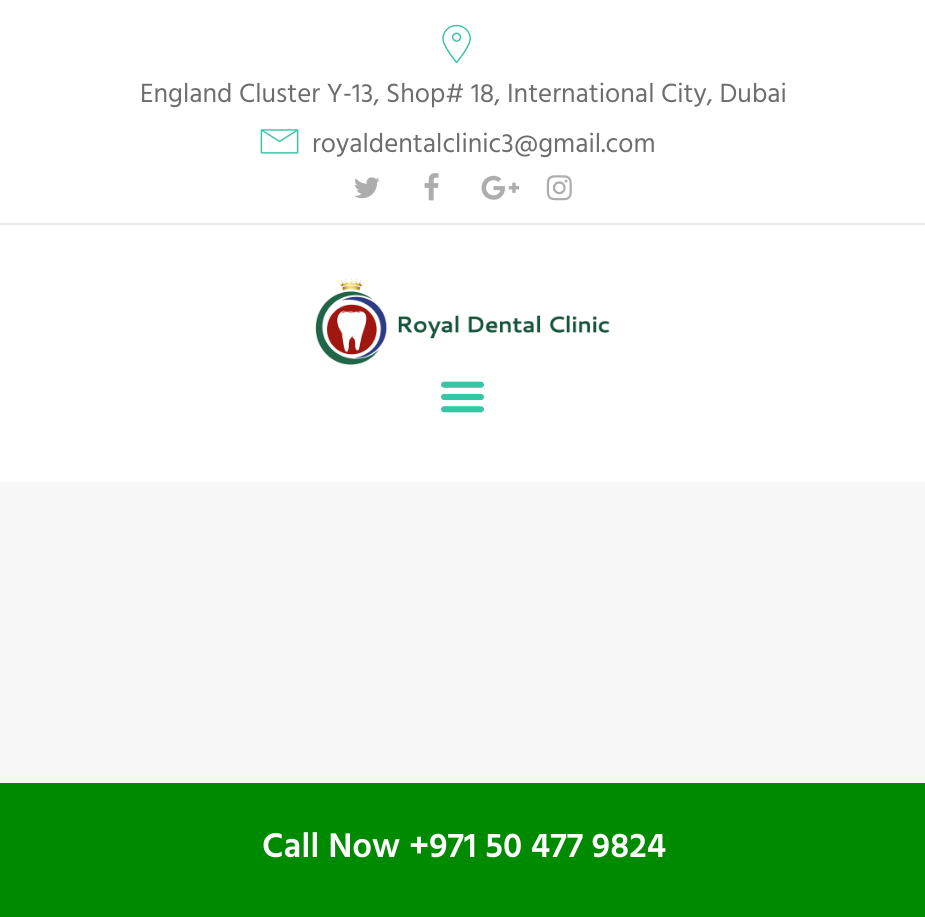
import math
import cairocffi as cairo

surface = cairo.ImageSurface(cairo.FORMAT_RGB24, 925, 917)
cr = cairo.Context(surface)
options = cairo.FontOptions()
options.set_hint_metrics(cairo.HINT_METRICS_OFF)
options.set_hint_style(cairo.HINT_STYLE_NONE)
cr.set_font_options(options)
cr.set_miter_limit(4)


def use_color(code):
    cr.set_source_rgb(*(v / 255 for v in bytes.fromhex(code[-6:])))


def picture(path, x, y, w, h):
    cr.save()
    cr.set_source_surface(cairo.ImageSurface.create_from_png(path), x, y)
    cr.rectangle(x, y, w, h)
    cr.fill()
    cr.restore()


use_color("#ffffff")
cr.paint()
use_color("#ebeaea")
cr.rectangle(0, 223, 925, 2)
cr.fill()
picture("img1.png", 442, 24, 29, 40)
cr.select_font_face("Hind")
cr.set_font_size(27)
use_color("#6d6d6d")
cr.move_to(140, 102)
cr.show_text("England Cluster Y-13, Shop# 18, International City, Dubai")
picture("img2.png", 260, 129, 39, 25)
cr.move_to(312, 152)
cr.show_text("royaldentalclinic3@gmail.com")
picture("img3.png", 354, 177, 26, 22)
picture("img4.png", 424, 173, 15, 28)
picture("img5.png", 481, 175, 39, 25)
picture("img6.png", 546, 175, 26, 26)
picture("img7.png", 315, 278, 295, 87)
picture("img8.png", 441, 381, 43, 32)
use_color("#f7f7f7")
cr.rectangle(0, 482, 925, 301)
cr.fill()
use_color("#008a00")
cr.rectangle(0, 783, 925, 134)
cr.fill()
cr.select_font_face("Hind SemiBold")
cr.set_font_size(35.1)
use_color("#ffffff")
cr.move_to(262, 857)
cr.show_text("Call Now +971 50 477 9824")
surface.write_to_png("result.png")
